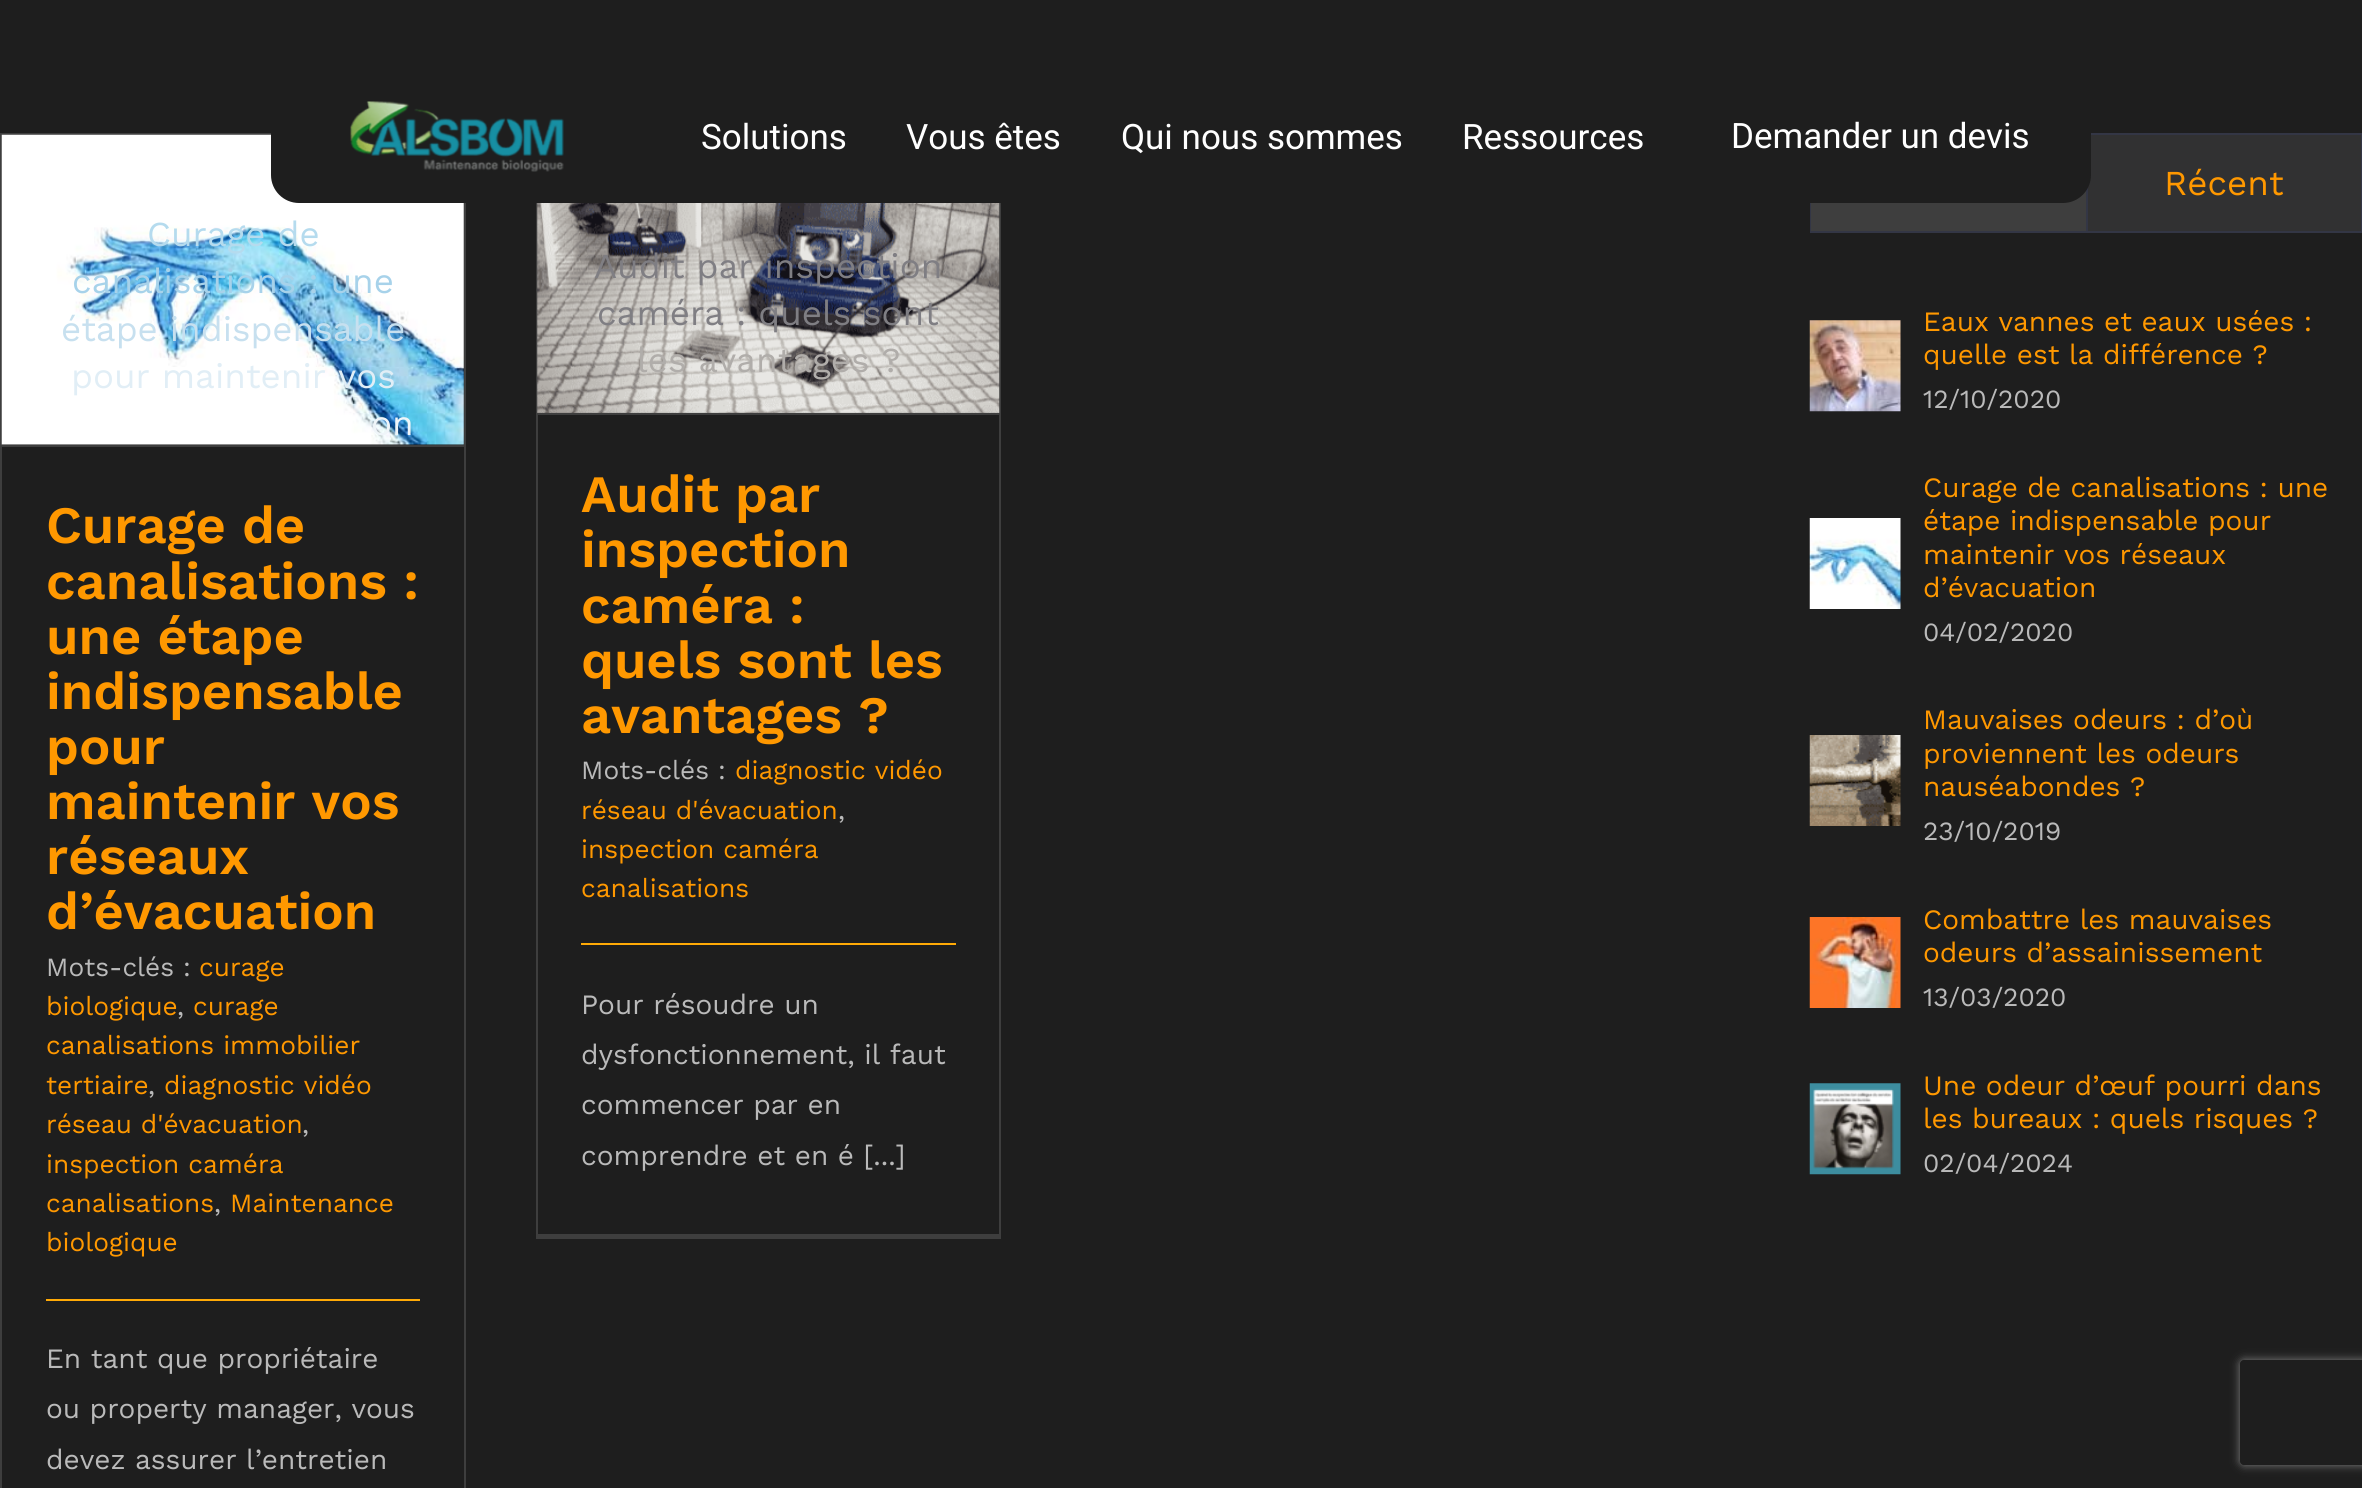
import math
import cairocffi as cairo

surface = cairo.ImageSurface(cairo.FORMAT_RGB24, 2362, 1488)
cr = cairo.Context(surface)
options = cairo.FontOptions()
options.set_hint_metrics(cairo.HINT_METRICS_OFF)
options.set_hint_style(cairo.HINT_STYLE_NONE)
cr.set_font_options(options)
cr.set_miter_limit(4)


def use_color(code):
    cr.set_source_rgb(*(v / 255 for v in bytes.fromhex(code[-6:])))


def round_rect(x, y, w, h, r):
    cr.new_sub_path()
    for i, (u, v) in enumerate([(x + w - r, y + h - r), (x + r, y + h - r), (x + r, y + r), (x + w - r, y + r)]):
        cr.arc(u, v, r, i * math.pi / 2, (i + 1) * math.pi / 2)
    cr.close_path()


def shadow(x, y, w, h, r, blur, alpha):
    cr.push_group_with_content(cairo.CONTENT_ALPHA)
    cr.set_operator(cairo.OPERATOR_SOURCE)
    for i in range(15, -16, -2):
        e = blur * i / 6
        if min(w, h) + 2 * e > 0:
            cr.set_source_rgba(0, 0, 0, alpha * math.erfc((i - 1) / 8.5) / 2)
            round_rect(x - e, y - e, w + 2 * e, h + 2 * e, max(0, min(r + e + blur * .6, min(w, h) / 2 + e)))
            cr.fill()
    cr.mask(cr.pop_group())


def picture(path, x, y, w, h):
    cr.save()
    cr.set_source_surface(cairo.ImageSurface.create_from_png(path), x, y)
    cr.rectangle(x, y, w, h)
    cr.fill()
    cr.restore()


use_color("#1e1e1e")
cr.paint()
use_color("#3e3e3e")
cr.rectangle(0, 133, 271, 2)
cr.fill()
cr.rectangle(0, 133, 2, 1355)
cr.fill()
picture("img2.png", 1, 134, 463, 311)
cr.rectangle(1811, 134, 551, 98)
use_color("#333645")
cr.stroke()
use_color("#313132")
cr.rectangle(2088, 135, 273, 96)
cr.fill()
use_color("#333645")
cr.rectangle(2086, 187, 2, 44)
cr.fill()
use_color("#3e3e3e")
cr.rectangle(1811, 191, 275, 40)
cr.fill()
use_color("#1e1e1e")
round_rect(271, 70, 1820, 133, 28)
cr.fill()
picture("img1.png", 350, 101, 214, 71)
cr.select_font_face("Roboto")
cr.set_font_size(35)
use_color("#ffffff")
cr.move_to(701, 149)
cr.show_text("Solutions")
cr.move_to(906, 149)
cr.show_text("Vous êtes")
cr.move_to(1121, 149)
cr.show_text("Qui nous sommes")
cr.move_to(1462, 149)
cr.show_text("Ressources")
cr.move_to(1731, 148)
cr.show_text("Demander un devis")
use_color("#3e3e3e")
cr.rectangle(464, 203, 2, 1285)
cr.fill()
cr.rectangle(2, 445, 462, 2)
cr.fill()
cr.select_font_face("Work Sans")
use_color("#b5dbee")
cr.move_to(147, 246)
cr.show_text("Curage de")
use_color("#a7d2ea")
cr.move_to(72, 293)
cr.show_text("canalisations : une")
use_color("#c7e0ef")
cr.move_to(61, 341)
cr.show_text("étape indispensable")
use_color("#e1eef6")
cr.move_to(71, 388)
cr.show_text("pour maintenir vos")
use_color("#eff5f9")
cr.move_to(371, 435)
cr.show_text("on")
cr.select_font_face("Work Sans SemiBold")
cr.set_font_size(52.5)
use_color("#ff9800")
cr.move_to(46, 543)
cr.show_text("Curage de")
cr.move_to(46, 599)
cr.show_text("canalisations :")
cr.move_to(46, 654)
cr.show_text("une étape")
cr.move_to(46, 709)
cr.show_text("indispensable")
cr.move_to(46, 764)
cr.show_text("pour")
cr.move_to(46, 819)
cr.show_text("maintenir vos")
cr.move_to(46, 874)
cr.show_text("réseaux")
cr.move_to(46, 929)
cr.show_text("d’évacuation")
cr.select_font_face("Work Sans")
cr.set_font_size(26.25)
use_color("#bababa")
cr.move_to(46, 976)
cr.show_text("Mots-clés :")
use_color("#ff9800")
cr.move_to(199, 976)
cr.show_text("curage")
cr.move_to(46, 1015)
cr.show_text("biologique")
use_color("#bababa")
cr.move_to(177, 1015)
cr.show_text(",")
use_color("#ff9800")
cr.move_to(193, 1015)
cr.show_text("curage")
cr.move_to(46, 1054)
cr.show_text("canalisations immobilier")
cr.move_to(46, 1094)
cr.show_text("tertiaire")
use_color("#bababa")
cr.move_to(148, 1094)
cr.show_text(",")
use_color("#ff9800")
cr.move_to(164, 1094)
cr.show_text("diagnostic vidéo")
cr.move_to(46, 1133)
cr.show_text("réseau d'évacuation")
use_color("#bababa")
cr.move_to(302, 1133)
cr.show_text(",")
use_color("#ff9800")
cr.move_to(46, 1173)
cr.show_text("inspection caméra")
cr.move_to(46, 1212)
cr.show_text("canalisations")
use_color("#bababa")
cr.move_to(214, 1212)
cr.show_text(",")
use_color("#ff9800")
cr.move_to(230, 1212)
cr.show_text("Maintenance")
cr.move_to(46, 1251)
cr.show_text("biologique")
use_color("#ffaa06")
cr.rectangle(46, 1299, 374, 2)
cr.fill()
cr.set_font_size(28)
use_color("#bababa")
cr.move_to(46, 1368)
cr.show_text("En tant que propriétaire")
cr.move_to(46, 1418)
cr.show_text("ou property manager, vous")
cr.move_to(46, 1469)
cr.show_text("devez assurer l’entretien")
use_color("#3e3e3e")
cr.rectangle(999, 203, 2, 1036)
cr.fill()
cr.rectangle(536, 1234, 465, 5)
cr.fill()
cr.rectangle(536, 203, 2, 1036)
cr.fill()
cr.rectangle(537, 413, 462, 2)
cr.fill()
picture("img3.png", 537, 203, 463, 210)
cr.set_font_size(35)
use_color("#7f7e83")
cr.move_to(594, 278)
cr.show_text("Audit par inspection")
cr.move_to(597, 325)
cr.show_text("caméra : quels sont")
use_color("#b0adaa")
cr.move_to(637, 372)
cr.show_text("les avantages ?")
cr.select_font_face("Work Sans SemiBold")
cr.set_font_size(52.5)
use_color("#ff9800")
cr.move_to(581, 512)
cr.show_text("Audit par")
cr.move_to(581, 567)
cr.show_text("inspection")
cr.move_to(581, 623)
cr.show_text("caméra :")
cr.move_to(581, 678)
cr.show_text("quels sont les")
cr.move_to(581, 733)
cr.show_text("avantages ?")
cr.select_font_face("Work Sans")
cr.set_font_size(26.25)
use_color("#bababa")
cr.move_to(581, 779)
cr.show_text("Mots-clés :")
use_color("#ff9800")
cr.move_to(735, 779)
cr.show_text("diagnostic vidéo")
cr.move_to(581, 819)
cr.show_text("réseau d'évacuation")
use_color("#bababa")
cr.move_to(838, 819)
cr.show_text(",")
use_color("#ff9800")
cr.move_to(581, 858)
cr.show_text("inspection caméra")
cr.move_to(581, 897)
cr.show_text("canalisations")
use_color("#ffaa06")
cr.rectangle(581, 943, 375, 2)
cr.fill()
cr.set_font_size(28)
use_color("#bababa")
cr.move_to(581, 1014)
cr.show_text("Pour résoudre un")
cr.move_to(581, 1064)
cr.show_text("dysfonctionnement, il faut")
cr.move_to(581, 1114)
cr.show_text("commencer par en")
cr.move_to(581, 1165)
cr.show_text("comprendre et en é [...]")
cr.set_font_size(35)
use_color("#ff9800")
cr.move_to(2164, 195)
cr.show_text("Récent")
picture("img4.png", 1809, 320, 92, 92)
cr.set_font_size(28)
cr.move_to(1923, 331)
cr.show_text("Eaux vannes et eaux usées :")
cr.move_to(1923, 364)
cr.show_text("quelle est la différence ?")
cr.set_font_size(26.25)
use_color("#bababa")
cr.move_to(1923, 408)
cr.show_text("12/10/2020")
picture("img5.png", 1809, 518, 92, 91)
cr.set_font_size(28)
use_color("#ff9800")
cr.move_to(1923, 497)
cr.show_text("Curage de canalisations : une")
cr.move_to(1923, 530)
cr.show_text("étape indispensable pour")
cr.move_to(1923, 564)
cr.show_text("maintenir vos réseaux")
cr.move_to(1923, 597)
cr.show_text("d’évacuation")
cr.set_font_size(26.25)
use_color("#bababa")
cr.move_to(1923, 641)
cr.show_text("04/02/2020")
picture("img6.png", 1809, 735, 92, 91)
cr.set_font_size(28)
use_color("#ff9800")
cr.move_to(1923, 729)
cr.show_text("Mauvaises odeurs : d’où")
cr.move_to(1923, 763)
cr.show_text("proviennent les odeurs")
cr.move_to(1923, 796)
cr.show_text("nauséabondes ?")
cr.set_font_size(26.25)
use_color("#bababa")
cr.move_to(1923, 840)
cr.show_text("23/10/2019")
picture("img7.png", 1809, 917, 92, 91)
cr.set_font_size(28)
use_color("#ff9800")
cr.move_to(1923, 929)
cr.show_text("Combattre les mauvaises")
cr.move_to(1923, 962)
cr.show_text("odeurs d’assainissement")
cr.set_font_size(26.25)
use_color("#bababa")
cr.move_to(1923, 1006)
cr.show_text("13/03/2020")
picture("img8.png", 1809, 1083, 92, 92)
cr.set_font_size(28)
use_color("#ff9800")
cr.move_to(1923, 1095)
cr.show_text("Une odeur d’œuf pourri dans")
cr.move_to(1923, 1128)
cr.show_text("les bureaux : quels risques ?")
cr.set_font_size(26.25)
use_color("#bababa")
cr.move_to(1923, 1172)
cr.show_text("02/04/2024")
cr.save()
cr.set_fill_rule(cairo.FILL_RULE_EVEN_ODD)
cr.new_path()
cr.move_to(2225, 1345)
cr.line_to(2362, 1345)
cr.line_to(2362, 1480)
cr.line_to(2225, 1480)
cr.close_path()
cr.move_to(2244, 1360)
cr.line_to(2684, 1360)
cr.curve_to(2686, 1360, 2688, 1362, 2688, 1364)
cr.line_to(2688, 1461)
cr.curve_to(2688, 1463, 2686, 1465, 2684, 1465)
cr.line_to(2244, 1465)
cr.curve_to(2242, 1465, 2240, 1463, 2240, 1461)
cr.line_to(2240, 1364)
cr.curve_to(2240, 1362, 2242, 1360, 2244, 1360)
cr.close_path()
cr.clip()
use_color("#808080")
shadow(2240, 1360, 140, 105, 4, 4.5, 1)
cr.restore()
surface.write_to_png("result.png")
